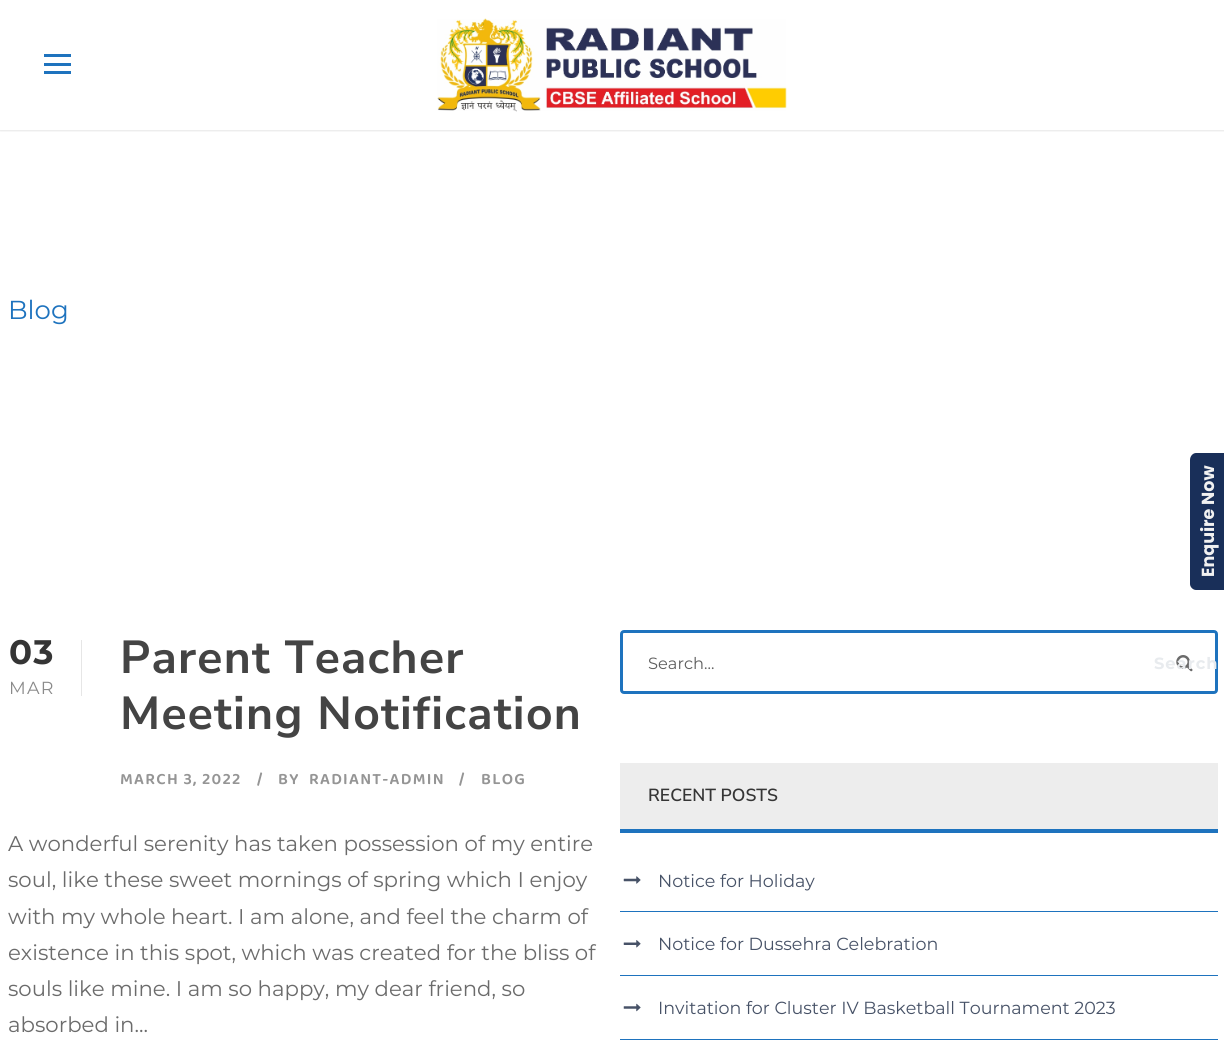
import math
import cairocffi as cairo

surface = cairo.ImageSurface(cairo.FORMAT_RGB24, 1224, 1061)
cr = cairo.Context(surface)
options = cairo.FontOptions()
options.set_hint_metrics(cairo.HINT_METRICS_OFF)
options.set_hint_style(cairo.HINT_STYLE_NONE)
cr.set_font_options(options)
cr.set_miter_limit(4)


def use_color(code):
    cr.set_source_rgb(*(v / 255 for v in bytes.fromhex(code[-6:])))


def spaced_text(x, y, s, letter, word):
    cr.move_to(x, y)
    for ch in s:
        cr.show_text(ch)
        cr.rel_move_to(letter + word * (ch == ' '), 0)


def round_rect(x, y, w, h, r):
    cr.new_sub_path()
    for i, (u, v) in enumerate([(x + w - r, y + h - r), (x + r, y + h - r), (x + r, y + r), (x + w - r, y + r)]):
        cr.arc(u, v, r, i * math.pi / 2, (i + 1) * math.pi / 2)
    cr.close_path()


def shadow(x, y, w, h, r, blur, alpha):
    cr.push_group_with_content(cairo.CONTENT_ALPHA)
    cr.set_operator(cairo.OPERATOR_SOURCE)
    for i in range(15, -16, -2):
        e = blur * i / 6
        if min(w, h) + 2 * e > 0:
            cr.set_source_rgba(0, 0, 0, alpha * math.erfc((i - 1) / 8.5) / 2)
            round_rect(x - e, y - e, w + 2 * e, h + 2 * e, max(0, min(r + e + blur * .6, min(w, h) / 2 + e)))
            cr.fill()
    cr.mask(cr.pop_group())


def picture(path, x, y, w, h):
    cr.save()
    cr.set_source_surface(cairo.ImageSurface.create_from_png(path), x, y)
    cr.rectangle(x, y, w, h)
    cr.fill()
    cr.restore()


use_color("#ffffff")
cr.paint()
cr.save()
cr.rectangle(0, 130, 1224, 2)
cr.clip()
use_color("#000000")
shadow(0, 1, 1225, 130, 0, 1, 0.1)
cr.restore()
use_color("#1e73be")
cr.rectangle(44, 54, 27, 3)
cr.fill()
cr.rectangle(44, 63, 27, 3)
cr.fill()
cr.rectangle(44, 71, 27, 3)
cr.fill()
picture("img1.png", 437, 18, 350, 94)
cr.select_font_face("Montserrat")
cr.set_font_size(26)
cr.move_to(8, 319)
cr.show_text("Blog")
use_color("#e6e6e6")
cr.rectangle(81, 640, 1, 56)
cr.fill()
cr.select_font_face("Montserrat", cairo.FONT_SLANT_NORMAL, cairo.FONT_WEIGHT_BOLD)
cr.set_font_size(34)
use_color("#353535")
spaced_text(9, 664, "03", 1.25, 0)
cr.select_font_face("Montserrat")
cr.set_font_size(17.5)
use_color("#8a8a8a")
spaced_text(9, 694, "MAR", 1.25, 0)
cr.select_font_face("Nunito Sans", cairo.FONT_SLANT_NORMAL, cairo.FONT_WEIGHT_BOLD)
cr.set_font_size(46.25)
use_color("#444444")
spaced_text(120, 673, "Parent Teacher", 1.25, 0)
spaced_text(120, 729, "Meeting Notification", 1.25, 0)
cr.select_font_face("Baloo Thambi 2 SemiBold")
cr.set_font_size(16.25)
use_color("#959595")
spaced_text(120, 784, "MARCH 3, 2022", 1.25, 0)
spaced_text(257, 784, "/", 1.25, 0)
spaced_text(278, 784, "BY", 1.25, 0)
spaced_text(309, 784, "RADIANT-ADMIN", 1.25, 0)
spaced_text(459, 784, "/", 1.25, 0)
spaced_text(481, 784, "BLOG", 1.25, 0)
cr.select_font_face("Montserrat")
cr.set_font_size(21.25)
use_color("#6b6b6b")
cr.move_to(8, 851)
cr.show_text("A wonderful serenity has taken possession of my entire")
cr.move_to(8, 887)
cr.show_text("soul, like these sweet mornings of spring which I enjoy")
cr.move_to(8, 924)
cr.show_text("with my whole heart. I am alone, and feel the charm of")
cr.move_to(8, 960)
cr.show_text("existence in this spot, which was created for the bliss of")
cr.move_to(8, 996)
cr.show_text("souls like mine. I am so happy, my dear friend, so")
cr.move_to(8, 1032)
cr.show_text("absorbed in...")
round_rect(621.5, 631.5, 595, 61, 2.5)
use_color("#1e73be")
cr.set_line_width(3)
cr.stroke()
cr.set_font_size(16.25)
use_color("#5e5e5e")
cr.move_to(648, 669)
cr.show_text("Search...")
picture("img2.png", 1176, 655, 17, 17)
cr.select_font_face("Montserrat", cairo.FONT_SLANT_NORMAL, cairo.FONT_WEIGHT_BOLD)
use_color("#e8ebee")
spaced_text(1154, 669, "Search", 1, 0)
use_color("#ededed")
cr.rectangle(620, 763, 598, 66)
cr.fill()
use_color("#1e73be")
cr.rectangle(620, 829, 598, 4)
cr.fill()
cr.select_font_face("Nunito Sans SemiBold")
cr.set_font_size(17.5)
use_color("#353535")
cr.move_to(648, 801)
cr.show_text("RECENT POSTS")
use_color("#1e73be")
cr.rectangle(620, 911, 598, 1)
cr.fill()
picture("img3.png", 623, 876, 18, 8)
cr.select_font_face("Montserrat")
use_color("#475267")
cr.move_to(658, 887)
cr.show_text("Notice for Holiday")
use_color("#1e73be")
cr.rectangle(620, 975, 598, 1)
cr.fill()
picture("img4.png", 623, 940, 18, 8)
use_color("#475267")
cr.move_to(658, 950)
cr.show_text("Notice for Dussehra Celebration")
use_color("#1e73be")
cr.rectangle(620, 1039, 598, 1)
cr.fill()
picture("img5.png", 623, 1003, 18, 9)
use_color("#475267")
cr.move_to(658, 1014)
cr.show_text("Invitation for Cluster IV Basketball Tournament 2023")
use_color("#192f59")
cr.new_path()
cr.move_to(1190, 584)
cr.line_to(1190, 460)
cr.curve_to(1190, 456, 1193, 453, 1196, 453)
cr.line_to(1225, 453)
cr.line_to(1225, 590)
cr.line_to(1196, 590)
cr.curve_to(1193, 590, 1190, 587, 1190, 584)
cr.close_path()
cr.fill()
cr.select_font_face("Poppins", cairo.FONT_SLANT_NORMAL, cairo.FONT_WEIGHT_BOLD)
use_color("#f1f1f1")
cr.save()
cr.translate(1214, 577)
cr.rotate(-90 * math.pi / 180)
cr.move_to(0, 0)
cr.show_text("Enquire Now")
cr.restore()
surface.write_to_png("result.png")
